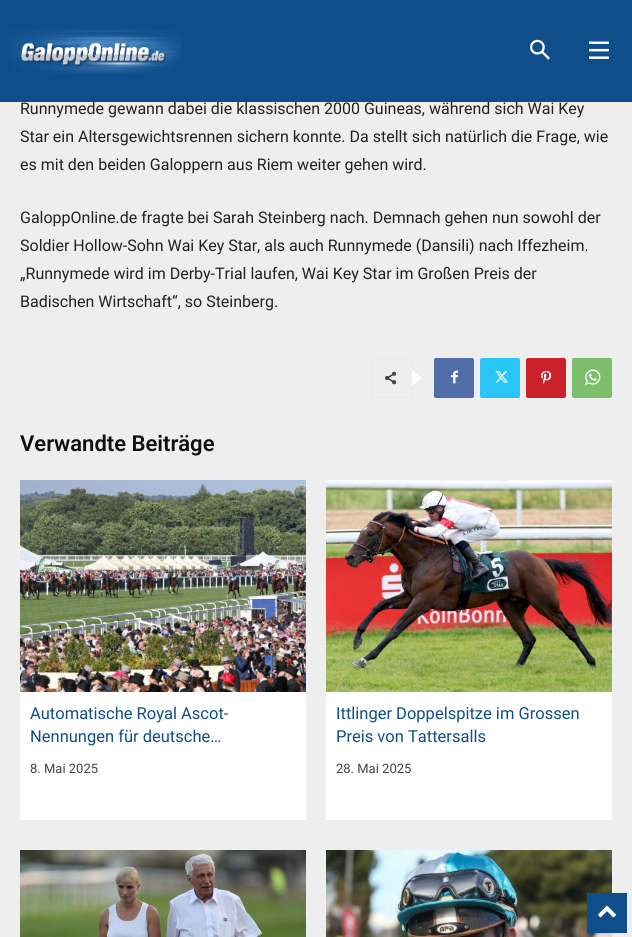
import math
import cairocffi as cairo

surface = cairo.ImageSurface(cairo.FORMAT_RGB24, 632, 937)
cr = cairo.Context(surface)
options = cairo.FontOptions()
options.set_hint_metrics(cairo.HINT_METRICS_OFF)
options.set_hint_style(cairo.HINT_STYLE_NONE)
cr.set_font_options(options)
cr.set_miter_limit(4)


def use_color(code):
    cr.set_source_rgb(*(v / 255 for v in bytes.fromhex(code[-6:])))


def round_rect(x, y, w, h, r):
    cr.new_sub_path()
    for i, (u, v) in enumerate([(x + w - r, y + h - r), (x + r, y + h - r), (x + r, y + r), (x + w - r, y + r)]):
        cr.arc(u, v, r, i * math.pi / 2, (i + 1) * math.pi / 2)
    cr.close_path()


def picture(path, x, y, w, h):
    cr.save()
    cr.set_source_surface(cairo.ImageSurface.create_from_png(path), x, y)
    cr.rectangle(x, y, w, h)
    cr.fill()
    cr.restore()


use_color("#eeeeee")
cr.paint()
use_color("#104e8b")
cr.rectangle(0, 0, 632, 102)
cr.fill()
picture("img1.png", 8, 29, 174, 45)
picture("img2.png", 530, 39, 20, 21)
picture("img3.png", 589, 41, 20, 18)
cr.select_font_face("Roboto")
cr.set_font_size(16)
use_color("#222222")
cr.move_to(20, 114)
cr.show_text("Runnymede gewann dabei die klassischen 2000 Guineas, während sich Wai Key")
cr.move_to(20, 142)
cr.show_text("Star ein Altersgewichtsrennen sichern konnte. Da stellt sich natürlich die Frage, wie")
cr.move_to(20, 170)
cr.show_text("es mit den beiden Galoppern aus Riem weiter gehen wird.")
cr.move_to(20, 223)
cr.show_text("GaloppOnline.de fragte bei Sarah Steinberg nach. Demnach gehen nun sowohl der")
cr.move_to(20, 251)
cr.show_text("Soldier Hollow-Sohn Wai Key Star, als auch Runnymede (Dansili) nach Iffezheim.")
cr.move_to(20, 279)
cr.show_text("„Runnymede wird im Derby-Trial laufen, Wai Key Star im Großen Preis der")
cr.move_to(20, 307)
cr.show_text("Badischen Wirtschaft“, so Steinberg.")
round_rect(371.5, 358.5, 41, 39, 1.5)
use_color("#e9e9e9")
cr.set_line_width(1)
cr.stroke()
cr.new_path()
cr.move_to(412, 387)
cr.line_to(412, 369)
cr.line_to(423, 378)
cr.close_path()
cr.fill()
picture("img4.png", 385, 371, 12, 14)
use_color("#ffffff")
cr.new_path()
cr.move_to(412, 386)
cr.line_to(412, 370)
cr.line_to(422, 378)
cr.close_path()
cr.fill()
use_color("#516eab")
round_rect(434, 358, 40, 40, 2)
cr.fill()
picture("img5.png", 451, 370, 7, 14)
use_color("#29c5f6")
round_rect(480, 358, 40, 40, 2)
cr.fill()
picture("img6.png", 495, 371, 13, 12)
use_color("#ca212a")
round_rect(526, 358, 40, 40, 2)
cr.fill()
picture("img7.png", 541, 370, 11, 14)
use_color("#7bbf6a")
round_rect(572, 358, 40, 40, 2)
cr.fill()
picture("img8.png", 585, 369, 16, 16)
cr.select_font_face("Roboto SemiBold")
cr.set_font_size(22)
use_color("#111111")
cr.move_to(20, 451)
cr.show_text("Verwandte Beiträge")
use_color("#ffffff")
cr.rectangle(20, 692, 286, 128)
cr.fill()
picture("img9.png", 20, 480, 286, 212)
cr.select_font_face("Roboto")
cr.set_font_size(16.5)
use_color("#104e8b")
cr.move_to(30, 719)
cr.show_text("Automatische Royal Ascot-")
cr.move_to(30, 742)
cr.show_text("Nennungen für deutsche…")
cr.set_font_size(13)
use_color("#444444")
cr.move_to(30, 773)
cr.show_text("8. Mai 2025")
use_color("#ffffff")
cr.rectangle(326, 692, 286, 128)
cr.fill()
picture("img10.png", 326, 480, 286, 212)
cr.set_font_size(16.5)
use_color("#104e8b")
cr.move_to(336, 719)
cr.show_text("Ittlinger Doppelspitze im Grossen")
cr.move_to(336, 742)
cr.show_text("Preis von Tattersalls")
cr.set_font_size(13)
use_color("#444444")
cr.move_to(336, 773)
cr.show_text("28. Mai 2025")
picture("img11.png", 20, 850, 286, 87)
picture("img12.png", 326, 850, 286, 87)
use_color("#104e8b")
cr.rectangle(587, 893, 40, 40)
cr.fill()
picture("img13.png", 598, 905, 18, 13)
surface.write_to_png("result.png")
